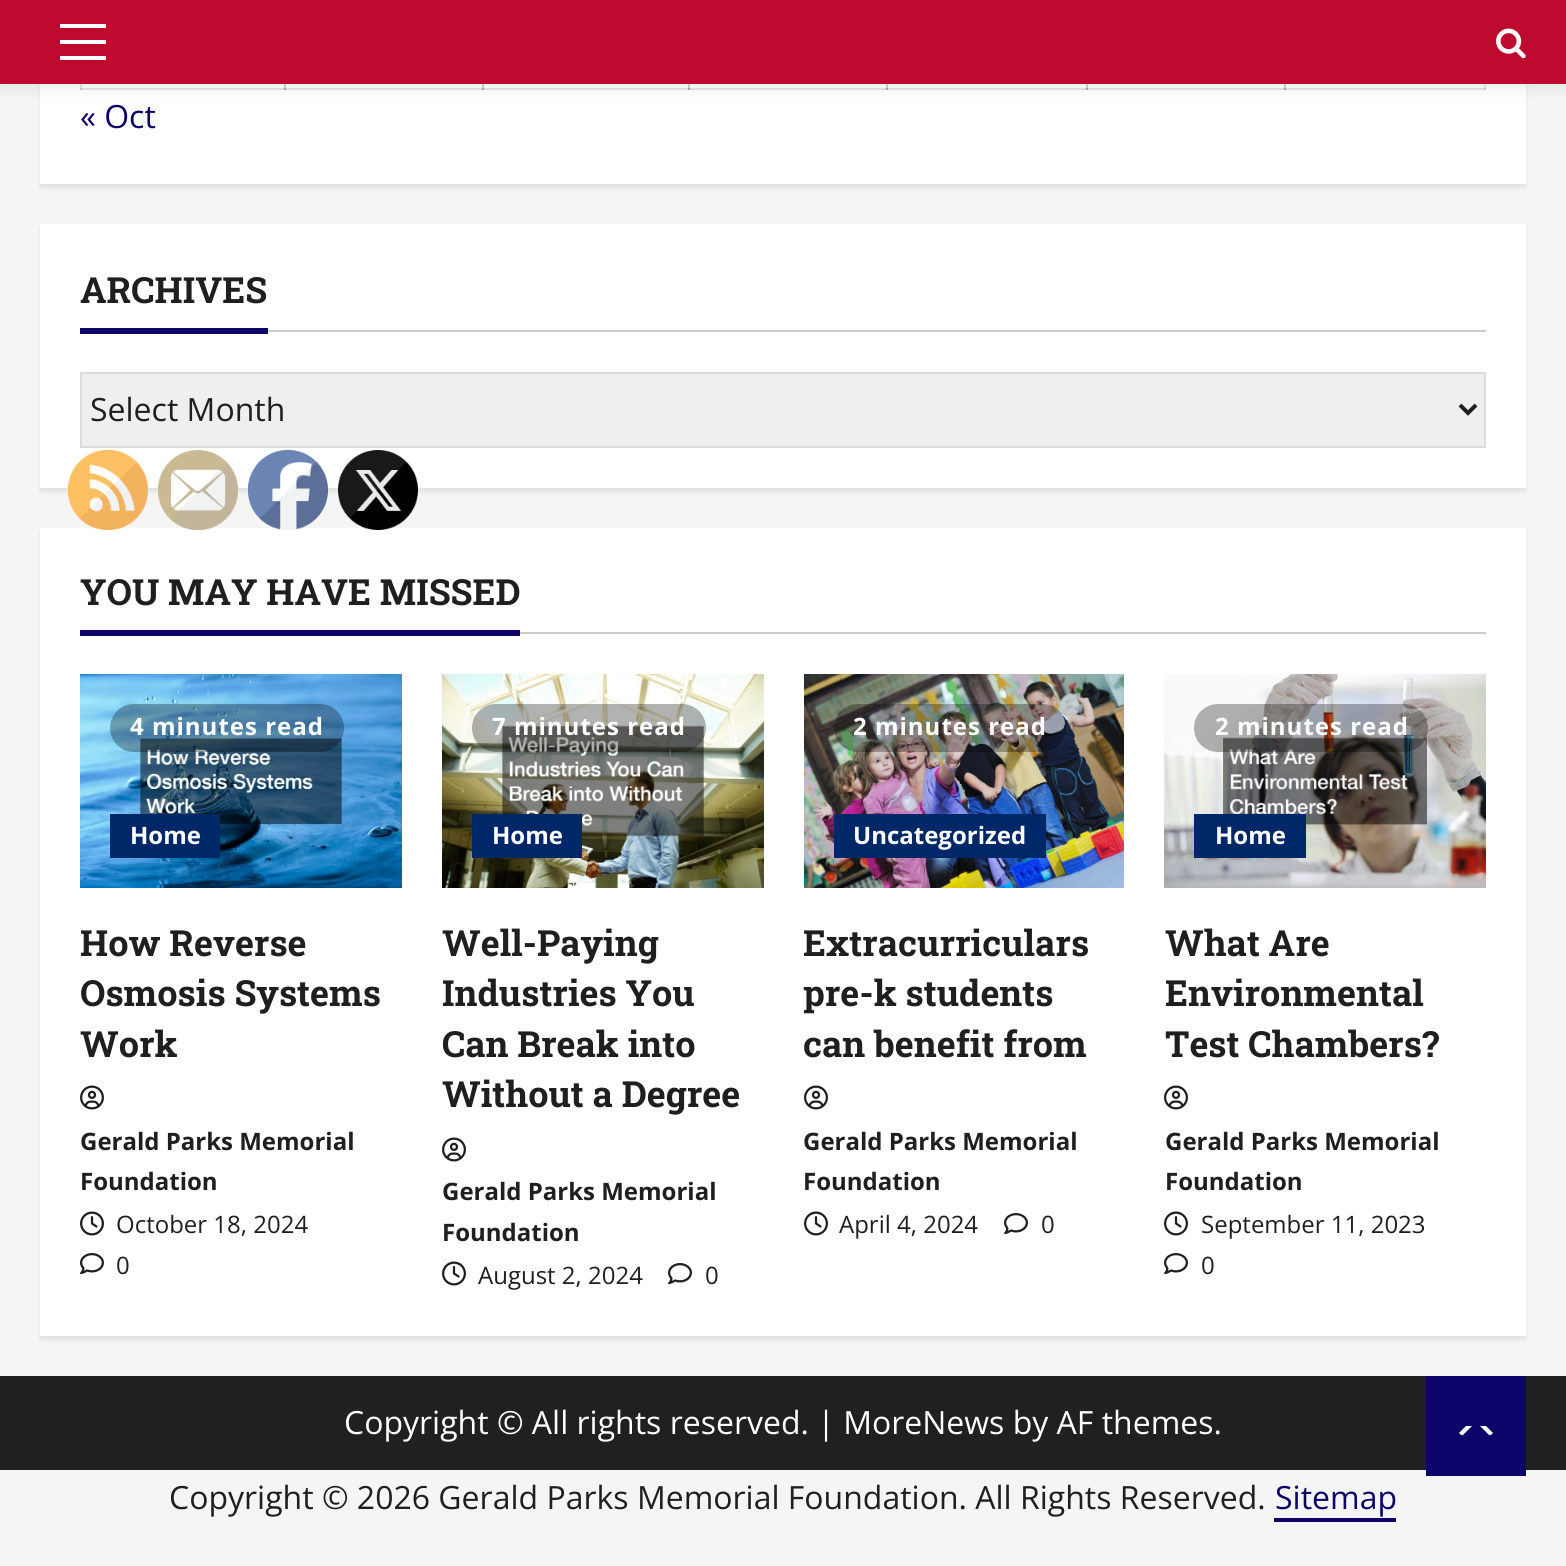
import math
import cairocffi as cairo

surface = cairo.ImageSurface(cairo.FORMAT_RGB24, 1566, 1566)
cr = cairo.Context(surface)
options = cairo.FontOptions()
options.set_hint_metrics(cairo.HINT_METRICS_OFF)
options.set_hint_style(cairo.HINT_STYLE_NONE)
cr.set_font_options(options)
cr.set_miter_limit(4)


def use_color(code):
    cr.set_source_rgb(*(v / 255 for v in bytes.fromhex(code[-6:])))


def spaced_text(x, y, s, letter, word):
    cr.move_to(x, y)
    for ch in s:
        cr.show_text(ch)
        cr.rel_move_to(letter + word * (ch == ' '), 0)


def round_rect(x, y, w, h, r):
    cr.new_sub_path()
    for i, (u, v) in enumerate([(x + w - r, y + h - r), (x + r, y + h - r), (x + r, y + r), (x + w - r, y + r)]):
        cr.arc(u, v, r, i * math.pi / 2, (i + 1) * math.pi / 2)
    cr.close_path()


def shadow(x, y, w, h, r, blur, alpha):
    cr.push_group_with_content(cairo.CONTENT_ALPHA)
    cr.set_operator(cairo.OPERATOR_SOURCE)
    for i in range(15, -16, -2):
        e = blur * i / 6
        if min(w, h) + 2 * e > 0:
            cr.set_source_rgba(0, 0, 0, alpha * math.erfc((i - 1) / 8.5) / 2)
            round_rect(x - e, y - e, w + 2 * e, h + 2 * e, max(0, min(r + e + blur * .6, min(w, h) / 2 + e)))
            cr.fill()
    cr.mask(cr.pop_group())


def picture(path, x, y, w, h):
    cr.save()
    cr.set_source_surface(cairo.ImageSurface.create_from_png(path), x, y)
    cr.rectangle(x, y, w, h)
    cr.fill()
    cr.restore()


use_color("#f5f5f5")
cr.paint()
use_color("#000000")
shadow(40, -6, 1486, 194, 0, 2, 0.08)
use_color("#ffffff")
cr.rectangle(40, 84, 1486, 100)
cr.fill()
use_color("#e6e6e6")
cr.rectangle(80, 84, 2, 6)
cr.fill()
cr.rectangle(80, 88, 206, 2)
cr.fill()
use_color("#cfcfcf")
cr.rectangle(80, 88, 2, 2)
cr.fill()
cr.rectangle(284, 84, 2, 6)
cr.fill()
use_color("#e6e6e6")
cr.rectangle(284, 88, 200, 2)
cr.fill()
use_color("#a7a7a7")
cr.rectangle(284, 88, 2, 2)
cr.fill()
use_color("#cfcfcf")
cr.rectangle(482, 84, 2, 6)
cr.fill()
use_color("#e6e6e6")
cr.rectangle(482, 88, 208, 2)
cr.fill()
use_color("#a7a7a7")
cr.rectangle(482, 88, 2, 2)
cr.fill()
use_color("#cfcfcf")
cr.rectangle(688, 84, 2, 6)
cr.fill()
use_color("#e6e6e6")
cr.rectangle(688, 88, 200, 2)
cr.fill()
use_color("#a7a7a7")
cr.rectangle(688, 88, 2, 2)
cr.fill()
use_color("#cfcfcf")
cr.rectangle(886, 84, 2, 6)
cr.fill()
use_color("#e6e6e6")
cr.rectangle(886, 88, 202, 2)
cr.fill()
use_color("#a7a7a7")
cr.rectangle(886, 88, 2, 2)
cr.fill()
use_color("#cfcfcf")
cr.rectangle(1086, 84, 2, 6)
cr.fill()
use_color("#e6e6e6")
cr.rectangle(1086, 88, 200, 2)
cr.fill()
use_color("#a7a7a7")
cr.rectangle(1086, 88, 2, 2)
cr.fill()
use_color("#cfcfcf")
cr.rectangle(1284, 84, 2, 6)
cr.fill()
use_color("#e6e6e6")
cr.rectangle(1284, 88, 202, 2)
cr.fill()
use_color("#a7a7a7")
cr.rectangle(1284, 88, 2, 2)
cr.fill()
use_color("#e6e6e6")
cr.rectangle(1484, 84, 2, 6)
cr.fill()
use_color("#cfcfcf")
cr.rectangle(1484, 88, 2, 2)
cr.fill()
use_color("#000000")
shadow(0, 4, 1566, 84, 0, 8, 0.08)
use_color("#bf0a30")
cr.rectangle(0, 0, 1566, 84)
cr.fill()
use_color("#ffffff")
cr.rectangle(60, 40, 46, 4)
cr.fill()
cr.rectangle(60, 24, 46, 4)
cr.fill()
cr.rectangle(60, 56, 46, 4)
cr.fill()
picture("img1.png", 1496, 28, 30, 31)
cr.select_font_face("Open Sans")
cr.set_font_size(32)
use_color("#0c0468")
cr.move_to(80, 128)
cr.show_text("« Oct")
use_color("#000000")
shadow(40, 228, 1486, 264, 0, 2, 0.08)
use_color("#ffffff")
cr.rectangle(40, 224, 1486, 264)
cr.fill()
use_color("#cccccc")
cr.rectangle(268, 330, 1218, 2)
cr.fill()
cr.select_font_face("Roboto Slab", cairo.FONT_SLANT_NORMAL, cairo.FONT_WEIGHT_BOLD)
cr.set_font_size(36)
use_color("#1f1f1f")
cr.move_to(80, 303)
cr.show_text("ARCHIVES")
use_color("#0c0468")
cr.rectangle(80, 328, 188, 6)
cr.fill()
use_color("#efefef")
cr.rectangle(81, 373, 1404, 74)
cr.fill_preserve()
use_color("#dcdcdc")
cr.stroke()
cr.new_path()
cr.move_to(1460, 405)
cr.line_to(1468, 413)
cr.line_to(1476, 405)
use_color("#1f1f1f")
cr.set_line_width(4)
cr.stroke()
cr.select_font_face("Open Sans")
cr.set_font_size(32)
cr.move_to(90, 421)
cr.show_text("Select Month")
use_color("#000000")
shadow(40, 532, 1486, 808, 0, 2, 0.08)
use_color("#ffffff")
cr.rectangle(40, 528, 1486, 808)
cr.fill()
use_color("#cccccc")
cr.rectangle(520, 632, 966, 2)
cr.fill()
cr.select_font_face("Roboto Slab", cairo.FONT_SLANT_NORMAL, cairo.FONT_WEIGHT_BOLD)
cr.set_font_size(36)
use_color("#1f1f1f")
cr.move_to(80, 605)
cr.show_text("YOU MAY HAVE MISSED")
use_color("#0c0468")
cr.rectangle(80, 630, 440, 6)
cr.fill()
picture("img2.png", 80, 674, 322, 214)
cr.set_source_rgba(0, 0, 0, 0.3)
round_rect(110, 704, 234, 48, 24)
cr.fill()
cr.select_font_face("Open Sans", cairo.FONT_SLANT_NORMAL, cairo.FONT_WEIGHT_BOLD)
cr.set_font_size(24)
use_color("#ffffff")
spaced_text(130, 735, "4 minutes read", 1, 0)
use_color("#002868")
cr.rectangle(110, 814, 110, 44)
cr.fill()
use_color("#ffffff")
cr.move_to(130, 844)
cr.show_text("Home")
cr.select_font_face("Roboto Slab", cairo.FONT_SLANT_NORMAL, cairo.FONT_WEIGHT_BOLD)
cr.set_font_size(36)
use_color("#1f1f1f")
cr.move_to(80, 956)
cr.show_text("How Reverse")
cr.move_to(80, 1006)
cr.show_text("Osmosis Systems")
cr.move_to(80, 1057)
cr.show_text("Work")
picture("img3.png", 80, 1085, 24, 25)
cr.select_font_face("Open Sans", cairo.FONT_SLANT_NORMAL, cairo.FONT_WEIGHT_BOLD)
cr.set_font_size(24)
cr.move_to(80, 1150)
cr.show_text("Gerald Parks Memorial")
cr.move_to(80, 1190)
cr.show_text("Foundation")
picture("img4.png", 80, 1211, 24, 25)
cr.select_font_face("Open Sans")
cr.move_to(116, 1233)
cr.show_text("October 18, 2024")
picture("img5.png", 80, 1253, 24, 21)
cr.move_to(116, 1274)
cr.show_text("0")
picture("img6.png", 442, 674, 322, 214)
cr.set_source_rgba(0, 0, 0, 0.3)
round_rect(472, 704, 234, 48, 24)
cr.fill()
cr.select_font_face("Open Sans", cairo.FONT_SLANT_NORMAL, cairo.FONT_WEIGHT_BOLD)
use_color("#ffffff")
spaced_text(492, 735, "7 minutes read", 1, 0)
use_color("#002868")
cr.rectangle(472, 814, 110, 44)
cr.fill()
use_color("#ffffff")
cr.move_to(492, 844)
cr.show_text("Home")
cr.select_font_face("Roboto Slab", cairo.FONT_SLANT_NORMAL, cairo.FONT_WEIGHT_BOLD)
cr.set_font_size(36)
use_color("#1f1f1f")
cr.move_to(442, 956)
cr.show_text("Well-Paying")
cr.move_to(442, 1006)
cr.show_text("Industries You")
cr.move_to(442, 1057)
cr.show_text("Can Break into")
cr.move_to(442, 1107)
cr.show_text("Without a Degree")
picture("img3.png", 442, 1137, 24, 25)
cr.select_font_face("Open Sans", cairo.FONT_SLANT_NORMAL, cairo.FONT_WEIGHT_BOLD)
cr.set_font_size(24)
cr.move_to(442, 1200)
cr.show_text("Gerald Parks Memorial")
cr.move_to(442, 1241)
cr.show_text("Foundation")
picture("img4.png", 442, 1261, 24, 25)
cr.select_font_face("Open Sans")
cr.move_to(478, 1284)
cr.show_text("August 2, 2024")
picture("img5.png", 668, 1263, 24, 21)
cr.move_to(705, 1284)
cr.show_text("0")
picture("img7.png", 804, 674, 320, 214)
cr.set_source_rgba(0, 0, 0, 0.3)
round_rect(834, 704, 232, 48, 24)
cr.fill()
cr.select_font_face("Open Sans", cairo.FONT_SLANT_NORMAL, cairo.FONT_WEIGHT_BOLD)
use_color("#ffffff")
spaced_text(853, 735, "2 minutes read", 1, 0)
use_color("#002868")
cr.rectangle(834, 814, 212, 44)
cr.fill()
use_color("#ffffff")
cr.move_to(853, 844)
cr.show_text("Uncategorized")
cr.select_font_face("Roboto Slab", cairo.FONT_SLANT_NORMAL, cairo.FONT_WEIGHT_BOLD)
cr.set_font_size(36)
use_color("#1f1f1f")
cr.move_to(803, 956)
cr.show_text("Extracurriculars")
cr.move_to(803, 1006)
cr.show_text("pre-k students")
cr.move_to(803, 1057)
cr.show_text("can benefit from")
picture("img3.png", 804, 1085, 24, 25)
cr.select_font_face("Open Sans", cairo.FONT_SLANT_NORMAL, cairo.FONT_WEIGHT_BOLD)
cr.set_font_size(24)
cr.move_to(803, 1150)
cr.show_text("Gerald Parks Memorial")
cr.move_to(803, 1190)
cr.show_text("Foundation")
picture("img4.png", 804, 1211, 24, 25)
cr.select_font_face("Open Sans")
cr.move_to(839, 1233)
cr.show_text("April 4, 2024")
picture("img5.png", 1004, 1213, 24, 21)
cr.move_to(1041, 1233)
cr.show_text("0")
picture("img8.png", 1164, 674, 322, 214)
cr.set_source_rgba(0, 0, 0, 0.3)
round_rect(1194, 704, 234, 48, 24)
cr.fill()
cr.select_font_face("Open Sans", cairo.FONT_SLANT_NORMAL, cairo.FONT_WEIGHT_BOLD)
use_color("#ffffff")
spaced_text(1215, 735, "2 minutes read", 1, 0)
use_color("#002868")
cr.rectangle(1194, 814, 112, 44)
cr.fill()
use_color("#ffffff")
cr.move_to(1215, 844)
cr.show_text("Home")
cr.select_font_face("Roboto Slab", cairo.FONT_SLANT_NORMAL, cairo.FONT_WEIGHT_BOLD)
cr.set_font_size(36)
use_color("#1f1f1f")
cr.move_to(1165, 956)
cr.show_text("What Are")
cr.move_to(1165, 1006)
cr.show_text("Environmental")
cr.move_to(1165, 1057)
cr.show_text("Test Chambers?")
picture("img3.png", 1164, 1085, 24, 25)
cr.select_font_face("Open Sans", cairo.FONT_SLANT_NORMAL, cairo.FONT_WEIGHT_BOLD)
cr.set_font_size(24)
cr.move_to(1165, 1150)
cr.show_text("Gerald Parks Memorial")
cr.move_to(1165, 1190)
cr.show_text("Foundation")
picture("img4.png", 1164, 1211, 24, 25)
cr.select_font_face("Open Sans")
cr.move_to(1201, 1233)
cr.show_text("September 11, 2023")
picture("img5.png", 1164, 1253, 24, 21)
cr.move_to(1201, 1274)
cr.show_text("0")
use_color("#202020")
cr.rectangle(0, 1376, 1566, 94)
cr.fill()
cr.set_font_size(32)
use_color("#ffffff")
cr.move_to(344, 1434)
cr.show_text("Copyright © All rights reserved. | MoreNews by AF themes.")
picture("img9.png", 68, 450, 80, 80)
picture("img10.png", 158, 450, 80, 80)
picture("img11.png", 248, 450, 80, 80)
picture("img12.png", 338, 450, 80, 80)
use_color("#0c0468")
cr.rectangle(1426, 1376, 100, 100)
cr.fill()
use_color("#ffffff")
cr.new_path()
cr.move_to(1466, 1436)
cr.line_to(1486, 1436)
cr.curve_to(1489, 1436, 1491.5, 1435, 1493, 1433)
cr.line_to(1486, 1426)
cr.line_to(1466, 1426)
cr.line_to(1459, 1433)
cr.curve_to(1460.5, 1435, 1463, 1436, 1466, 1436)
cr.close_path()
cr.fill()
use_color("#0c0468")
cr.new_path()
cr.move_to(1496, 1442)
cr.line_to(1456, 1442)
cr.line_to(1476, 1422)
cr.close_path()
cr.fill()
use_color("#1f1f1f")
cr.move_to(169, 1509)
cr.show_text("Copyright © 2026 Gerald Parks Memorial Foundation. All Rights Reserved.")
use_color("#0c0468")
cr.move_to(1275, 1509)
cr.show_text("Sitemap")
cr.rectangle(1274, 1518, 122, 4)
cr.fill()
surface.write_to_png("result.png")
